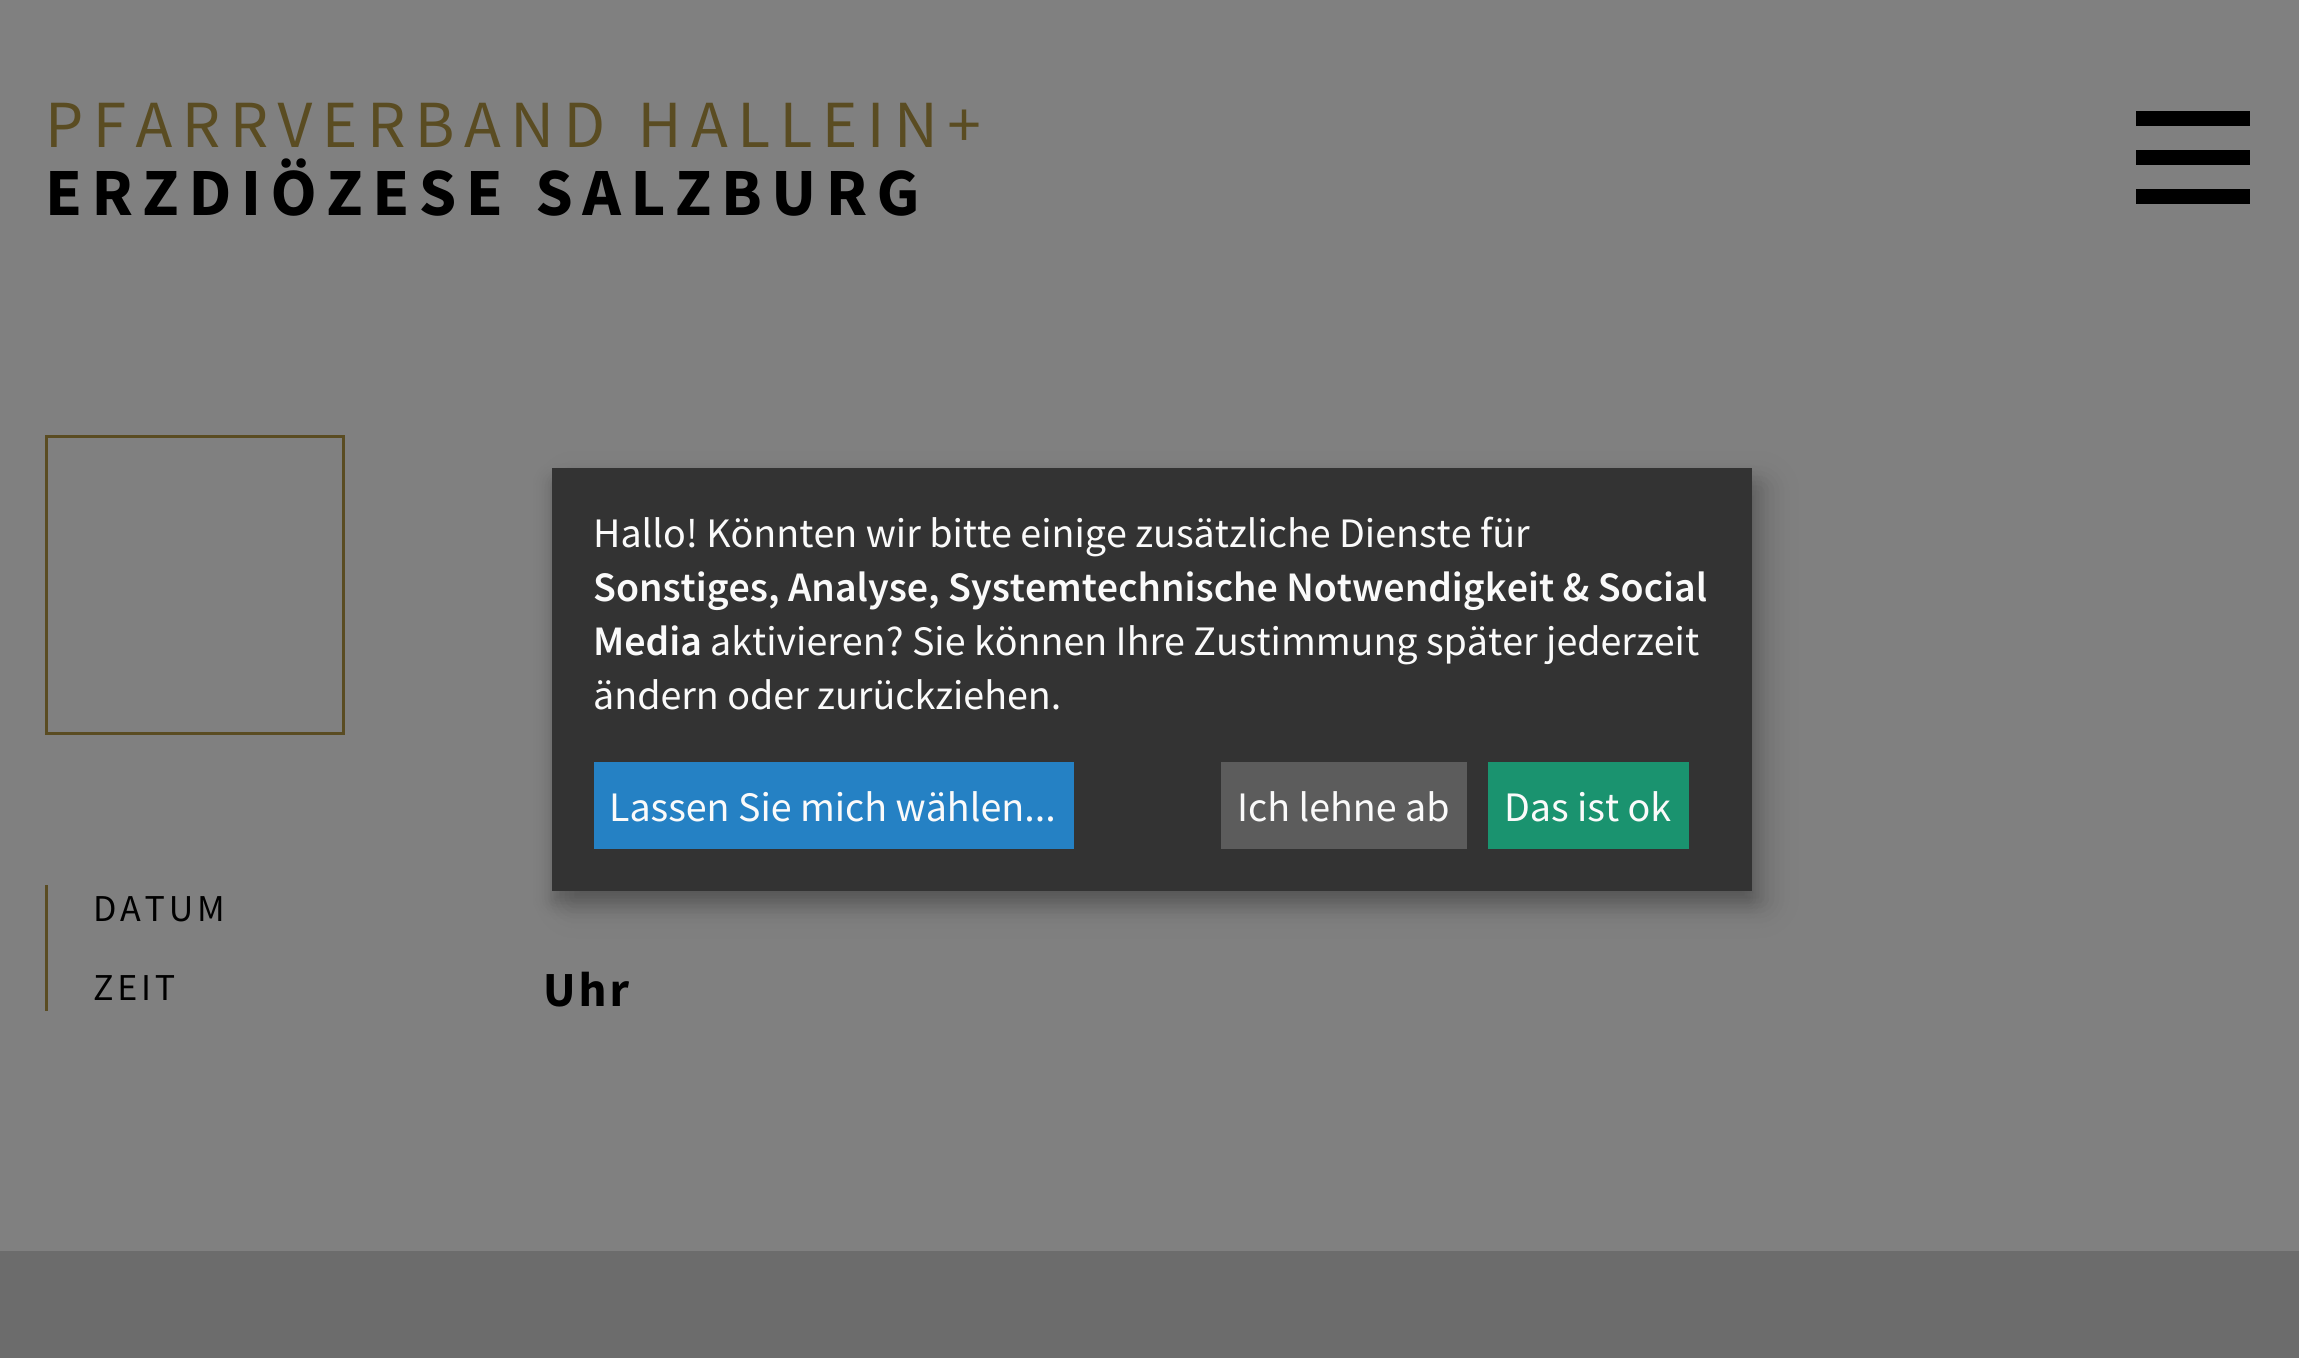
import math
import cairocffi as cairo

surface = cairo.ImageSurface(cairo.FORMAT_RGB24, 2299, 1358)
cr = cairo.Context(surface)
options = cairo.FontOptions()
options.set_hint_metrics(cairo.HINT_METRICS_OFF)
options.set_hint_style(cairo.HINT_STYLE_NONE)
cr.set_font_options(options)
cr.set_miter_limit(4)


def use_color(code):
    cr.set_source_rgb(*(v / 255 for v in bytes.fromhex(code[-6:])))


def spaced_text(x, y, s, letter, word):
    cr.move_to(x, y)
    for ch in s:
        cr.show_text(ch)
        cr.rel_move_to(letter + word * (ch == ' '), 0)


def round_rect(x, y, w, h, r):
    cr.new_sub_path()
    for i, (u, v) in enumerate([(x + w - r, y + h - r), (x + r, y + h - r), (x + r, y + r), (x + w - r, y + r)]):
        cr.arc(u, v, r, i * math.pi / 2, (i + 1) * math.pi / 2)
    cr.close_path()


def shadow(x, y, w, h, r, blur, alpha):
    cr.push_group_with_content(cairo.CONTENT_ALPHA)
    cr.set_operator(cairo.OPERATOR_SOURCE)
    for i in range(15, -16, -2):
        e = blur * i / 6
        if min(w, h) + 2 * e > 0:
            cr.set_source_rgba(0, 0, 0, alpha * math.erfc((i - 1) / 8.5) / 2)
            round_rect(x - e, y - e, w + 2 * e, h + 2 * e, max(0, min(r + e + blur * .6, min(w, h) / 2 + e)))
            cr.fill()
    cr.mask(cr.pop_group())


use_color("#808080")
cr.paint()
cr.select_font_face("Source Sans Pro")
cr.set_font_size(67.5)
use_color("#5a4c22")
spaced_text(45, 147, "PFARRVERBAND HALLEIN+", 9.5, 0)
cr.select_font_face("Source Sans Pro", cairo.FONT_SLANT_NORMAL, cairo.FONT_WEIGHT_BOLD)
use_color("#000000")
spaced_text(45, 215, "ERZDIÖZESE SALZBURG", 9.5, 0)
cr.set_fill_rule(cairo.FILL_RULE_EVEN_ODD)
cr.new_path()
cr.move_to(2136, 189)
cr.line_to(2250, 189)
cr.line_to(2250, 204)
cr.line_to(2136, 204)
cr.close_path()
cr.move_to(2136, 150)
cr.line_to(2250, 150)
cr.line_to(2250, 165)
cr.line_to(2136, 165)
cr.close_path()
cr.move_to(2136, 111)
cr.line_to(2250, 111)
cr.line_to(2250, 126)
cr.line_to(2136, 126)
cr.close_path()
cr.fill()
cr.rectangle(46.5, 436.5, 297, 297)
use_color("#5a4c22")
cr.set_line_width(3)
cr.stroke()
cr.rectangle(45, 885, 3, 126)
cr.fill()
cr.select_font_face("Source Sans Pro")
cr.set_font_size(38)
use_color("#000000")
spaced_text(93, 921, "DATUM", 3.75, 0)
spaced_text(93, 1000, "ZEIT", 3.75, 0)
cr.select_font_face("Source Sans Pro", cairo.FONT_SLANT_NORMAL, cairo.FONT_WEIGHT_BOLD)
cr.set_font_size(49)
spaced_text(543, 1006, "Uhr", 3, 0)
use_color("#6c6c6c")
cr.rectangle(0, 1251, 2299, 107)
cr.fill()
use_color("#000000")
shadow(567, 483, 1200, 423, 0, 15, 0.19)
shadow(552, 480, 1200, 423, 0, 9, 0.2)
use_color("#333333")
cr.rectangle(552, 468, 1200, 423)
cr.fill()
cr.select_font_face("Source Sans Pro")
cr.set_font_size(42)
use_color("#fafafa")
cr.move_to(593, 547)
cr.show_text("Hallo! Könnten wir bitte einige zusätzliche Dienste für")
cr.select_font_face("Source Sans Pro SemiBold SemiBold")
cr.move_to(593, 601)
cr.show_text("Sonstiges, Analyse, Systemtechnische Notwendigkeit & Social")
cr.move_to(593, 655)
cr.show_text("Media")
cr.select_font_face("Source Sans Pro")
cr.move_to(710, 655)
cr.show_text("aktivieren? Sie können Ihre Zustimmung später jederzeit")
cr.move_to(593, 709)
cr.show_text("ändern oder zurückziehen.")
use_color("#2581c4")
cr.rectangle(594, 762, 480, 87)
cr.fill()
use_color("#fafafa")
cr.move_to(609, 821)
cr.show_text("Lassen Sie mich wählen...")
use_color("#5c5c5c")
cr.rectangle(1221, 762, 246, 87)
cr.fill()
use_color("#fafafa")
cr.move_to(1237, 821)
cr.show_text("Ich lehne ab")
use_color("#1a936f")
cr.rectangle(1488, 762, 201, 87)
cr.fill()
use_color("#fafafa")
cr.move_to(1504, 821)
cr.show_text("Das ist ok")
surface.write_to_png("result.png")
